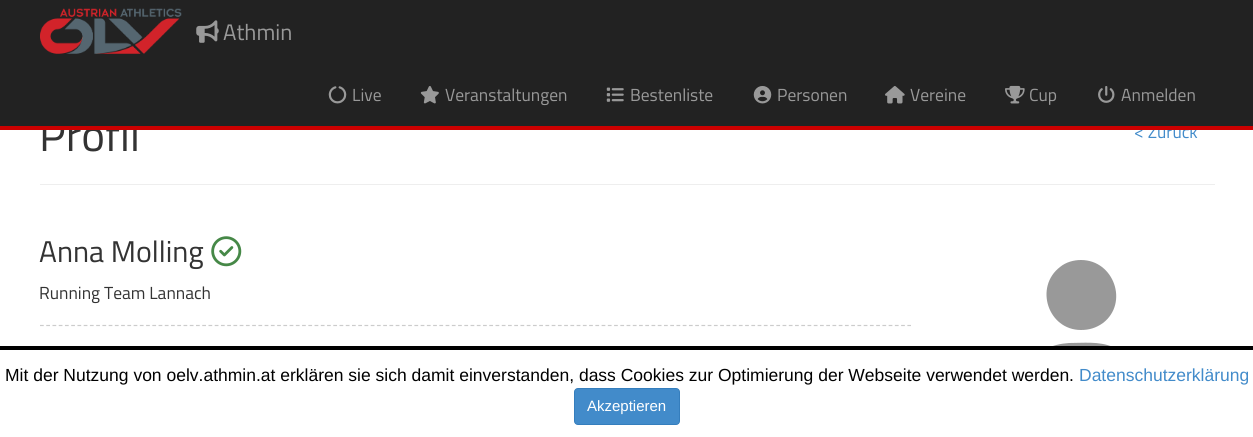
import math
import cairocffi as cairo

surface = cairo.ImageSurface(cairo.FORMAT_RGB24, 1253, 437)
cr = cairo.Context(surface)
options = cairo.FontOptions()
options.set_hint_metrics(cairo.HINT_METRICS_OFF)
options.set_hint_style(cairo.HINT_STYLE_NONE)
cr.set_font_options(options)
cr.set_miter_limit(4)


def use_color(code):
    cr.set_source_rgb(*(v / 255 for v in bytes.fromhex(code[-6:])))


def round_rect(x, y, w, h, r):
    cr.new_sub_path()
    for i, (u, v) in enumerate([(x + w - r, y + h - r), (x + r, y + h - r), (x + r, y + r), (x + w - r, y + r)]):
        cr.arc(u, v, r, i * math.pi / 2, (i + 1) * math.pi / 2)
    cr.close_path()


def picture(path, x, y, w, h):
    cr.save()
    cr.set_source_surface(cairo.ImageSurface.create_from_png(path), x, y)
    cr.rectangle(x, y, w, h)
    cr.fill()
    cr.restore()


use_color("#ffffff")
cr.paint()
cr.select_font_face("Titillium Web")
cr.set_font_size(45)
use_color("#333333")
cr.move_to(39, 151)
cr.show_text("Profil")
cr.set_font_size(17.5)
use_color("#428bca")
cr.move_to(1134, 138)
cr.show_text("< Zurück")
use_color("#222222")
cr.rectangle(0, 0, 1253, 126)
cr.fill()
use_color("#cc0000")
cr.rectangle(0, 126, 1253, 4)
cr.fill()
picture("img1.png", 40, 8, 142, 46)
picture("img2.png", 196, 20, 23, 23)
cr.set_font_size(22.5)
use_color("#999999")
cr.move_to(223, 40)
cr.show_text("Athmin")
picture("img3.png", 328, 86, 19, 18)
cr.set_font_size(17.5)
cr.move_to(352, 101)
cr.show_text("Live")
picture("img4.png", 420, 86, 19, 18)
cr.move_to(445, 101)
cr.show_text("Veranstaltungen")
picture("img5.png", 606, 87, 18, 15)
cr.move_to(630, 101)
cr.show_text("Bestenliste")
picture("img6.png", 753, 86, 19, 18)
cr.move_to(777, 101)
cr.show_text("Personen")
picture("img7.png", 885, 86, 20, 18)
cr.move_to(910, 101)
cr.show_text("Vereine")
picture("img8.png", 1005, 85, 20, 19)
cr.move_to(1029, 101)
cr.show_text("Cup")
picture("img9.png", 1098, 86, 17, 17)
cr.move_to(1121, 101)
cr.show_text("Anmelden")
use_color("#eeeeee")
cr.rectangle(40, 184, 1175, 1)
cr.fill()
cr.set_font_size(30)
use_color("#333333")
cr.move_to(39, 262)
cr.show_text("Anna Molling")
picture("img10.png", 211, 236, 31, 31)
cr.set_font_size(17.5)
cr.move_to(39, 299)
cr.show_text("Running Team Lannach")
cr.new_path()
cr.move_to(40, 325.5)
cr.line_to(911, 325.5)
use_color("#cccccc")
cr.set_line_width(1.2)
cr.set_dash([3.75, 2.49])
cr.stroke()
use_color("#999999")
cr.new_path()
cr.move_to(1081, 330)
cr.curve_to(1089, 330, 1096, 328, 1103, 323)
cr.curve_to(1129, 303, 1114, 260, 1081, 260)
cr.curve_to(1074, 260, 1066, 262, 1060, 267)
cr.curve_to(1034, 287, 1048, 330, 1081, 330)
cr.close_path()
cr.move_to(1069, 343)
cr.curve_to(1052, 344, 1037, 351, 1028, 365)
cr.curve_to(1024, 371, 1021, 379, 1020, 387)
cr.curve_to(1018, 404, 1032, 400, 1046, 400)
cr.line_to(1134, 400)
cr.curve_to(1151, 400, 1138, 371, 1134, 365)
cr.curve_to(1129, 357, 1121, 351, 1113, 347)
cr.curve_to(1099, 341, 1083, 343, 1069, 343)
cr.close_path()
cr.fill()
use_color("#ffffff")
cr.rectangle(1019, 350, 124, 51)
cr.fill()
use_color("#000000")
cr.rectangle(0, 346, 1253, 4)
cr.fill()
cr.select_font_face("Liberation Sans")
cr.move_to(5, 381)
cr.show_text("Mit der Nutzung von oelv.athmin.at erklären sie sich damit einverstanden, dass Cookies zur Optimierung der Webseite verwendet werden.")
use_color("#428bca")
cr.move_to(1079, 381)
cr.show_text("Datenschutzerklärung")
round_rect(574.5, 388.5, 105, 36, 3.5)
cr.fill_preserve()
use_color("#357ebd")
cr.set_line_width(1)
cr.set_dash([])
cr.stroke()
cr.set_font_size(15)
use_color("#ffffff")
cr.move_to(587, 411)
cr.show_text("Akzeptieren")
surface.write_to_png("result.png")
